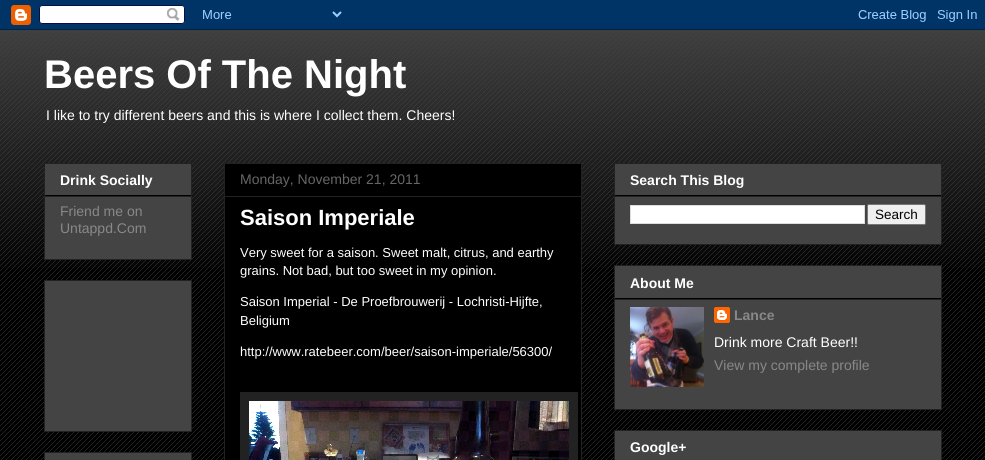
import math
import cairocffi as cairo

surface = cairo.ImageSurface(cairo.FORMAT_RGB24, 985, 460)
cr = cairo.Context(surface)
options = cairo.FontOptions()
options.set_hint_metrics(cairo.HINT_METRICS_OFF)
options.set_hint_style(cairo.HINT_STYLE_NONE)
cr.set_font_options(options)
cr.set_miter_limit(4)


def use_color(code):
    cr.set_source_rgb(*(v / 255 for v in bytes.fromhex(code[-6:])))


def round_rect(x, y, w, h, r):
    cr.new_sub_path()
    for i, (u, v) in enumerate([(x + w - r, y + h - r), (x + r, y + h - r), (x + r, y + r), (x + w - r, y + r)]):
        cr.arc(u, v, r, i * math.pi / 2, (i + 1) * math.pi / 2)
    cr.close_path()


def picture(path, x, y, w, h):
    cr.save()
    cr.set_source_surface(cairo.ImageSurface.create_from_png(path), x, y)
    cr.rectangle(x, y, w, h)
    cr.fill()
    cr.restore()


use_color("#000000")
cr.paint()
picture("img1.png", 0, 30, 985, 430)
picture("img2.png", 0, 0, 985, 30)
picture("img3.png", 0, 30, 985, 238)
cr.select_font_face("Liberation Sans", cairo.FONT_SLANT_NORMAL, cairo.FONT_WEIGHT_BOLD)
cr.set_font_size(40)
use_color("#ffffff")
cr.move_to(44, 88)
cr.show_text("Beers Of The Night")
cr.select_font_face("Liberation Sans")
cr.set_font_size(14)
cr.move_to(46, 120)
cr.show_text("I like to try different beers and this is where I collect them. Cheers!")
use_color("#444444")
cr.rectangle(44.5, 163.5, 147, 96)
cr.fill_preserve()
use_color("#222222")
cr.set_line_width(1)
cr.stroke()
use_color("#000000")
cr.rectangle(45, 195, 146, 1)
cr.fill()
cr.select_font_face("Liberation Sans", cairo.FONT_SLANT_NORMAL, cairo.FONT_WEIGHT_BOLD)
use_color("#ffffff")
cr.move_to(60, 185)
cr.show_text("Drink Socially")
use_color("#222222")
cr.rectangle(45, 196, 146, 1)
cr.fill()
cr.select_font_face("Liberation Sans")
use_color("#888888")
cr.move_to(60, 216)
cr.show_text("Friend me on")
cr.move_to(60, 233)
cr.show_text("Untappd.Com")
use_color("#444444")
cr.rectangle(44.5, 280.5, 147, 151)
cr.fill_preserve()
use_color("#222222")
cr.stroke()
use_color("#444444")
cr.rectangle(44.5, 452.5, 147, 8)
cr.fill_preserve()
use_color("#222222")
cr.stroke()
use_color("#000000")
cr.rectangle(224.5, 163.5, 357, 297)
cr.fill_preserve()
use_color("#222222")
cr.stroke()
use_color("#666666")
cr.move_to(240, 184)
cr.show_text("Monday, November 21, 2011")
use_color("#222222")
cr.rectangle(225, 196, 356, 1)
cr.fill()
cr.select_font_face("Liberation Sans", cairo.FONT_SLANT_NORMAL, cairo.FONT_WEIGHT_BOLD)
cr.set_font_size(22)
use_color("#ffffff")
cr.move_to(240, 225)
cr.show_text("Saison Imperiale")
cr.select_font_face("Liberation Sans")
cr.set_font_size(13)
cr.move_to(240, 257)
cr.show_text("Very sweet for a saison. Sweet malt, citrus, and earthy")
cr.move_to(240, 275)
cr.show_text("grains. Not bad, but too sweet in my opinion.")
cr.move_to(240, 306)
cr.show_text("Saison Imperial - De Proefbrouwerij - Lochristi-Hijfte,")
cr.move_to(240, 325)
cr.show_text("Beligium")
cr.move_to(240, 356)
cr.show_text("http://www.ratebeer.com/beer/saison-imperiale/56300/")
use_color("#222222")
cr.rectangle(240, 392, 338, 68)
cr.fill()
picture("img4.png", 249, 401, 320, 59)
use_color("#444444")
cr.rectangle(614.5, 163.5, 327, 81)
cr.fill_preserve()
use_color("#222222")
cr.stroke()
use_color("#000000")
cr.rectangle(615, 195, 326, 1)
cr.fill()
cr.select_font_face("Liberation Sans", cairo.FONT_SLANT_NORMAL, cairo.FONT_WEIGHT_BOLD)
cr.set_font_size(14)
use_color("#ffffff")
cr.move_to(630, 185)
cr.show_text("Search This Blog")
use_color("#222222")
cr.rectangle(615, 196, 326, 1)
cr.fill()
use_color("#ffffff")
cr.rectangle(630.5, 205.5, 234, 18)
cr.fill_preserve()
use_color("#dddddd")
cr.stroke()
use_color("#efefef")
round_rect(867.5, 204.5, 58, 20, 1.5)
cr.fill_preserve()
use_color("#767676")
cr.stroke()
cr.select_font_face("Liberation Sans")
cr.set_font_size(13.5)
use_color("#000000")
cr.move_to(875, 219)
cr.show_text("Search")
use_color("#444444")
cr.rectangle(614.5, 265.5, 327, 144)
cr.fill_preserve()
use_color("#222222")
cr.stroke()
use_color("#000000")
cr.rectangle(615, 298, 326, 1)
cr.fill()
cr.select_font_face("Liberation Sans", cairo.FONT_SLANT_NORMAL, cairo.FONT_WEIGHT_BOLD)
cr.set_font_size(14)
use_color("#ffffff")
cr.move_to(630, 288)
cr.show_text("About Me")
use_color("#222222")
cr.rectangle(615, 299, 326, 1)
cr.fill()
picture("img5.png", 630, 307, 74, 80)
picture("img6.png", 714, 307, 16, 16)
use_color("#888888")
cr.move_to(734, 320)
cr.show_text("Lance")
cr.select_font_face("Liberation Sans")
use_color("#ffffff")
cr.move_to(714, 347)
cr.show_text("Drink more Craft Beer!!")
use_color("#888888")
cr.move_to(714, 370)
cr.show_text("View my complete profile")
use_color("#444444")
cr.rectangle(614.5, 430.5, 327, 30)
cr.fill_preserve()
use_color("#222222")
cr.stroke()
cr.select_font_face("Liberation Sans", cairo.FONT_SLANT_NORMAL, cairo.FONT_WEIGHT_BOLD)
use_color("#ffffff")
cr.move_to(630, 452)
cr.show_text("Google+")
surface.write_to_png("result.png")
